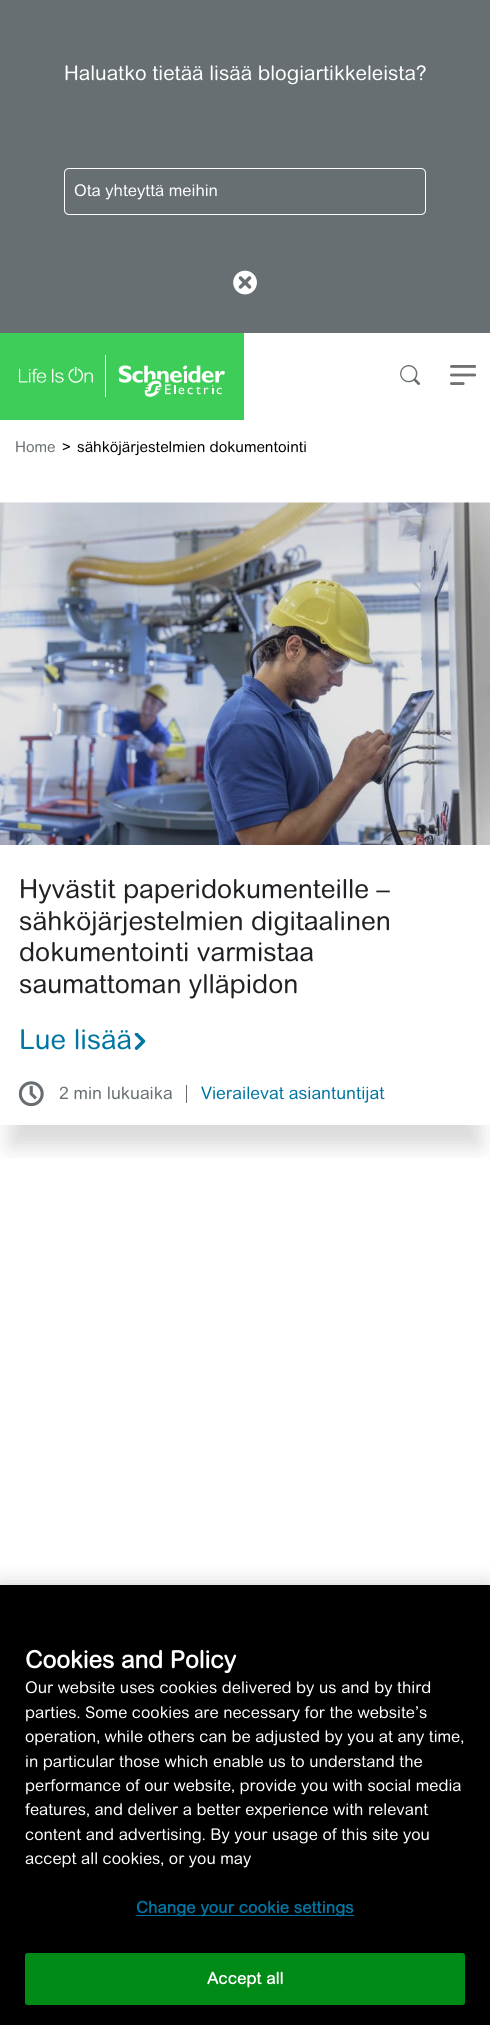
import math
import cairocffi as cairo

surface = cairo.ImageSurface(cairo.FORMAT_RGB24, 490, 2025)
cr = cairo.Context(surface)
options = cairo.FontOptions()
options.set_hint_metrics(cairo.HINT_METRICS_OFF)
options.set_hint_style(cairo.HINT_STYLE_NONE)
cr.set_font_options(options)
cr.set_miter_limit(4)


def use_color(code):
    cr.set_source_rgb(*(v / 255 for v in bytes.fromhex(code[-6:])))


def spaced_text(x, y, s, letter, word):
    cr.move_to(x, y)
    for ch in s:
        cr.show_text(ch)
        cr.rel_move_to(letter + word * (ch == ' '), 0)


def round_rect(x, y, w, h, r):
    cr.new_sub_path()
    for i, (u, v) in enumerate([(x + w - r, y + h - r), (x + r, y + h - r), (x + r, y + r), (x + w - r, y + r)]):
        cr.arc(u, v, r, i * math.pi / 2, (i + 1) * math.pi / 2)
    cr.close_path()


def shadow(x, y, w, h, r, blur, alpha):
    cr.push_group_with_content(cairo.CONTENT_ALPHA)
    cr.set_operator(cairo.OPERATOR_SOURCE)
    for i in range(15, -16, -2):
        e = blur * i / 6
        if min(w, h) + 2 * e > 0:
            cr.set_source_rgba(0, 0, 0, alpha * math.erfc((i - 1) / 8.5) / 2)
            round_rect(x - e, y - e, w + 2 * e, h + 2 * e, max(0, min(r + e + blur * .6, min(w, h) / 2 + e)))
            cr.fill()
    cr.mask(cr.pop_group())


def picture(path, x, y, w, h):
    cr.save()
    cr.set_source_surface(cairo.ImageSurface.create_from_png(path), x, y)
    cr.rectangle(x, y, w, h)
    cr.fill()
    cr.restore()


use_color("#ffffff")
cr.paint()
use_color("#676f73")
cr.rectangle(0, 0, 490, 333)
cr.fill()
cr.select_font_face("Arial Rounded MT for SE")
cr.set_font_size(20.25)
use_color("#ffffff")
cr.move_to(64, 80)
cr.show_text("Haluatko tietää lisää blogiartikkeleista?")
round_rect(64.5, 168.5, 361, 46, 4.5)
cr.set_line_width(1)
cr.stroke()
cr.set_font_size(16.25)
cr.move_to(74, 196)
cr.show_text("Ota yhteyttä meihin")
picture("img1.png", 233, 270, 24, 25)
use_color("#3dcd58")
cr.rectangle(0, 333, 244, 87)
cr.fill()
picture("img2.png", 19, 355, 206, 42)
picture("img3.png", 400, 365, 20, 20)
picture("img4.png", 450, 365, 26, 20)
cr.set_font_size(15)
use_color("#676f73")
cr.move_to(15, 452)
cr.show_text("Home")
use_color("#000000")
cr.move_to(62, 452)
cr.show_text(">")
cr.move_to(77, 452)
cr.show_text("sähköjärjestelmien dokumentointi")
cr.save()
cr.rectangle(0, 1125, 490, 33)
cr.clip()
use_color("#000000")
shadow(10, 544, 470, 602, 0, 11, 0.15)
cr.restore()
picture("img5.png", 0, 502, 490, 343)
cr.set_font_size(26.25)
use_color("#202124")
cr.move_to(19, 898)
cr.show_text("Hyvästit paperidokumenteille –")
cr.move_to(19, 930)
cr.show_text("sähköjärjestelmien digitaalinen")
cr.move_to(19, 961)
cr.show_text("dokumentointi varmistaa")
cr.move_to(19, 993)
cr.show_text("saumattoman ylläpidon")
cr.set_font_size(27.5)
use_color("#0075a3")
cr.move_to(19, 1049)
cr.show_text("Lue lisää")
picture("img6.png", 134, 1033, 12, 17)
picture("img7.png", 19, 1081, 25, 25)
cr.set_font_size(17.25)
use_color("#676f73")
cr.move_to(59, 1099)
cr.show_text("2 min lukuaika")
cr.rectangle(186, 1085, 1, 18)
cr.fill()
use_color("#0075a3")
cr.move_to(201, 1099)
cr.show_text("Vierailevat asiantuntijat")
use_color("#000000")
shadow(0, 1585, 490, 440, 0, 11, 0.2)
use_color("#000000")
cr.rectangle(0, 1585, 490, 440)
cr.fill()
cr.select_font_face("Arial Rounded MT for SE", cairo.FONT_SLANT_NORMAL, cairo.FONT_WEIGHT_BOLD)
cr.set_font_size(24)
use_color("#ffffff")
cr.move_to(25, 1668)
cr.show_text("Cookies and Policy")
cr.select_font_face("Arial Rounded MT for SE")
cr.set_font_size(16.25)
cr.move_to(25, 1693)
cr.show_text("Our website uses cookies delivered by us and by third")
cr.move_to(25, 1718)
cr.show_text("parties. Some cookies are necessary for the website’s")
cr.move_to(25, 1742)
cr.show_text("operation, while others can be adjusted by you at any time,")
cr.move_to(25, 1767)
cr.show_text("in particular those which enable us to understand the")
cr.move_to(25, 1791)
cr.show_text("performance of our website, provide you with social media")
cr.move_to(25, 1815)
cr.show_text("features, and deliver a better experience with relevant")
cr.move_to(25, 1840)
cr.show_text("content and advertising. By your usage of this site you")
cr.move_to(25, 1864)
cr.show_text("accept all cookies, or you may")
use_color("#0075a3")
cr.rectangle(136, 1915, 218, 1)
cr.fill()
cr.select_font_face("Arial Rounded MT for SE", cairo.FONT_SLANT_NORMAL, cairo.FONT_WEIGHT_BOLD)
spaced_text(136, 1913, "Change your cookie settings", 0.15, 0)
use_color("#008a16")
round_rect(25.5, 1953.5, 439, 51, 2)
cr.fill_preserve()
cr.stroke()
use_color("#ffffff")
spaced_text(207, 1984, "Accept all", 0.15, 0)
surface.write_to_png("result.png")
